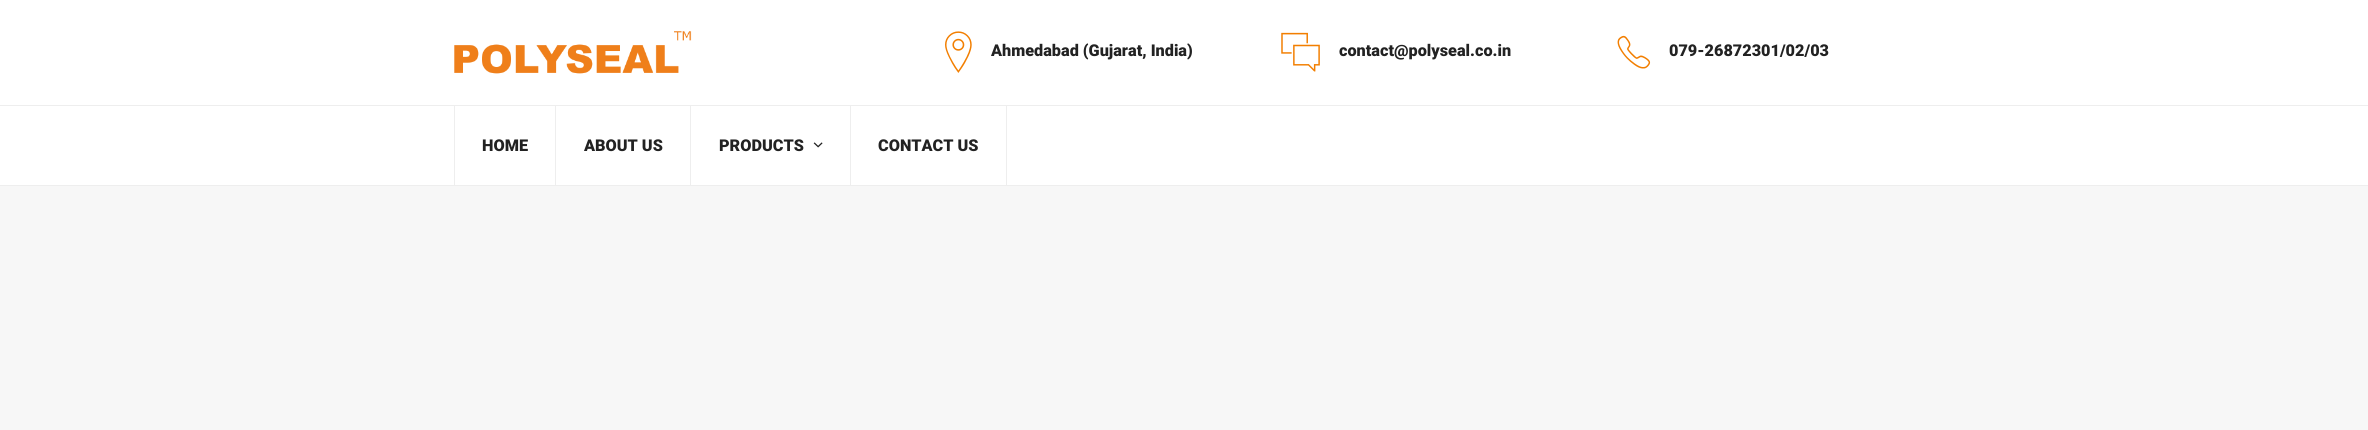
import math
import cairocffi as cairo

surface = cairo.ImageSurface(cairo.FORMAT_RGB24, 2368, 430)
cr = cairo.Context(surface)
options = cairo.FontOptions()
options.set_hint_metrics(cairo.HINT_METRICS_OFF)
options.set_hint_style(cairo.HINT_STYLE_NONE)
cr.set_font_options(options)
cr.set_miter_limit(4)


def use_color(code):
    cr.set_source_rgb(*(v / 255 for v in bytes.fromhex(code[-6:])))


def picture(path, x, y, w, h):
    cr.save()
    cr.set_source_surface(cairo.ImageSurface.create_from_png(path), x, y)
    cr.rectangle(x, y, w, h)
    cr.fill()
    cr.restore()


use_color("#f7f7f7")
cr.paint()
use_color("#ffffff")
cr.rectangle(0, 0, 2368, 185)
cr.fill()
use_color("#eeeeee")
cr.rectangle(0, 185, 2368, 1)
cr.fill()
picture("img1.png", 454, 31, 238, 43)
picture("img2.png", 945, 31, 27, 42)
cr.select_font_face("Roboto Black")
cr.set_font_size(16.25)
use_color("#222222")
cr.move_to(991, 56)
cr.show_text("Ahmedabad (Gujarat, India)")
picture("img3.png", 1281, 32, 39, 40)
cr.move_to(1339, 56)
cr.show_text("contact@polyseal.co.in")
picture("img4.png", 1617, 35, 34, 34)
cr.move_to(1669, 56)
cr.show_text("079-26872301/02/03")
use_color("#eeeeee")
cr.rectangle(0, 105, 2368, 1)
cr.fill()
cr.rectangle(454, 106, 1, 79)
cr.fill()
cr.rectangle(555, 106, 1, 79)
cr.fill()
use_color("#222222")
cr.move_to(482, 151)
cr.show_text("HOME")
use_color("#eeeeee")
cr.rectangle(690, 106, 1, 79)
cr.fill()
use_color("#222222")
cr.move_to(584, 151)
cr.show_text("ABOUT US")
use_color("#eeeeee")
cr.rectangle(850, 106, 1, 79)
cr.fill()
use_color("#222222")
cr.move_to(719, 151)
cr.show_text("PRODUCTS")
picture("img5.png", 813, 142, 10, 6)
use_color("#eeeeee")
cr.rectangle(1006, 106, 1, 79)
cr.fill()
use_color("#222222")
cr.move_to(878, 151)
cr.show_text("CONTACT US")
surface.write_to_png("result.png")
